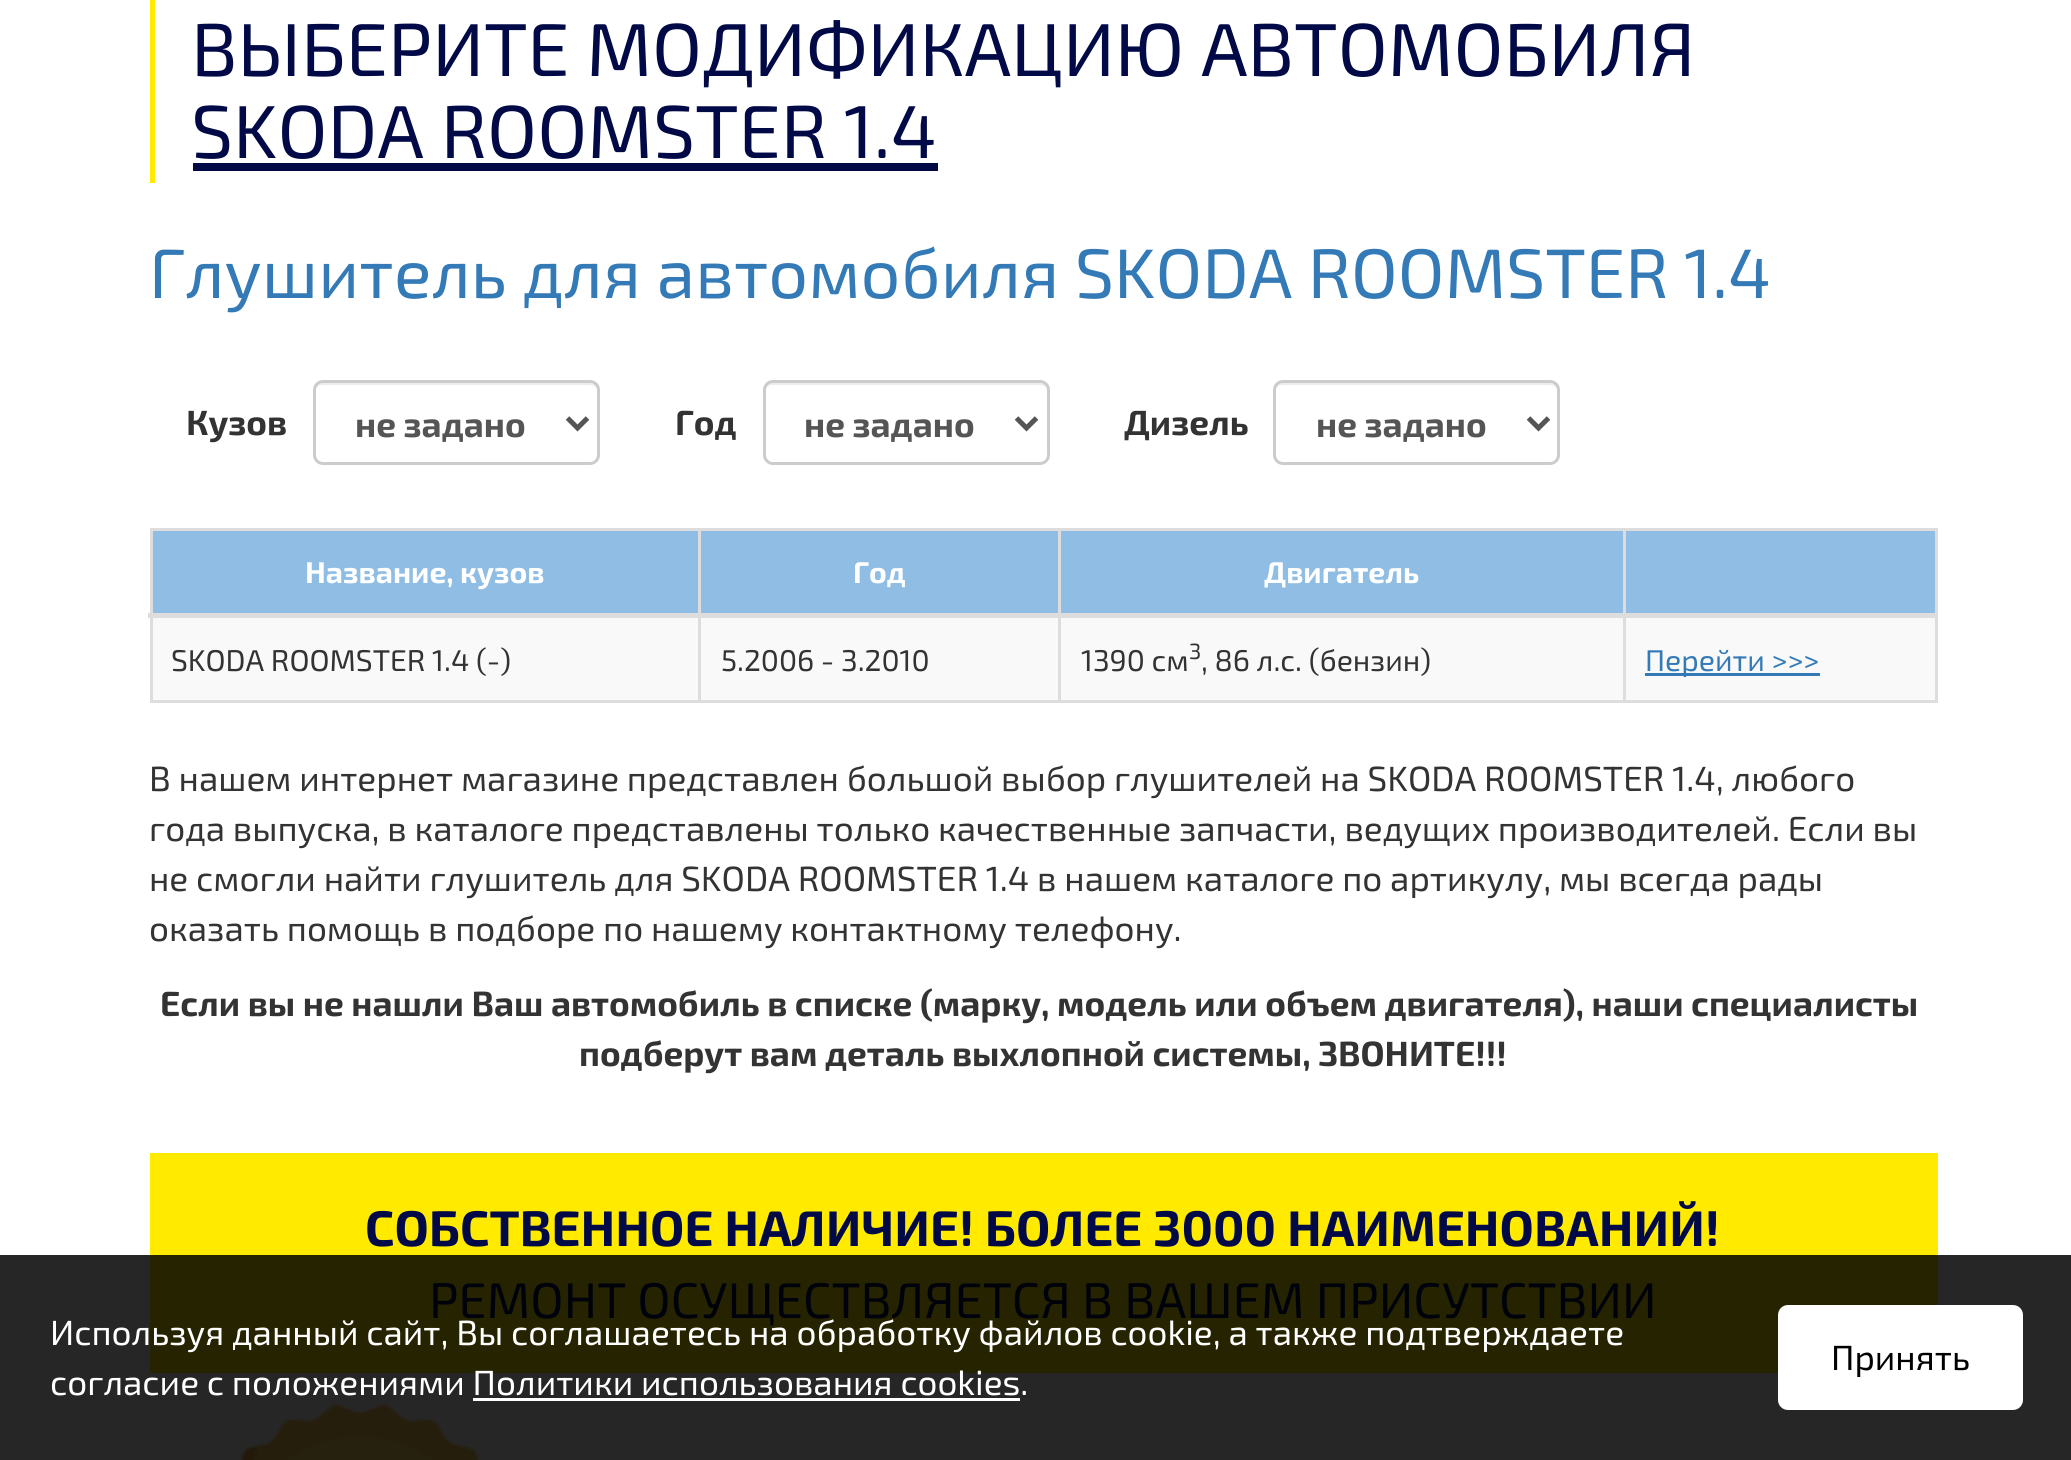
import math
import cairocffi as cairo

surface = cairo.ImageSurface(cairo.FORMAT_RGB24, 2071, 1460)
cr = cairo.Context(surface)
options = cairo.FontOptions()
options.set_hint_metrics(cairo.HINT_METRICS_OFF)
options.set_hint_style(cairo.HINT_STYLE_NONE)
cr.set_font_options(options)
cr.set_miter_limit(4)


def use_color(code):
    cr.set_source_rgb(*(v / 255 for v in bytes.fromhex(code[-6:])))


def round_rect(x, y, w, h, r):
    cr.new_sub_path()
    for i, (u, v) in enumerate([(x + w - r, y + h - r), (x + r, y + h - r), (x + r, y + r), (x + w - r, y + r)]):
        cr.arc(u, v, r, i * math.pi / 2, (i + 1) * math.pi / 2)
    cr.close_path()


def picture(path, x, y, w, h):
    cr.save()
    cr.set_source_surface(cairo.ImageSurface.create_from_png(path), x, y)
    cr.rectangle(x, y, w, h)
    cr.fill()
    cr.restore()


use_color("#ffffff")
cr.paint()
use_color("#262626")
cr.rectangle(0, 1255, 2071, 205)
cr.fill()
use_color("#ffea00")
cr.rectangle(150, 0, 5, 183)
cr.fill()
cr.select_font_face("Exo 2")
cr.set_font_size(75)
use_color("#010a46")
cr.move_to(191, 76)
cr.show_text("ВЫБЕРИТЕ МОДИФИКАЦИЮ АВТОМОБИЛЯ")
cr.move_to(191, 158)
cr.show_text("SKODA ROOMSTER 1.4")
cr.rectangle(193, 163, 745, 8)
cr.fill()
cr.set_font_size(70)
use_color("#337ab7")
cr.move_to(149, 298)
cr.show_text("Глушитель для автомобиля SKODA ROOMSTER 1.4")
cr.select_font_face("Exo 2", cairo.FONT_SLANT_NORMAL, cairo.FONT_WEIGHT_BOLD)
cr.set_font_size(35)
use_color("#333333")
cr.move_to(186, 435)
cr.show_text("Кузов")
use_color("#ececec")
cr.new_path()
cr.move_to(322, 385)
cr.line_to(590, 385)
cr.curve_to(594, 385, 598, 388, 598, 392)
cr.line_to(598, 391)
cr.curve_to(598, 387, 594, 383, 590, 383)
cr.line_to(323, 383)
cr.curve_to(319, 383, 315, 387, 315, 391)
cr.line_to(315, 392)
cr.curve_to(315, 388, 318, 385, 322, 385)
cr.close_path()
cr.fill()
round_rect(314.5, 381.5, 284, 82, 8.5)
use_color("#cccccc")
cr.set_line_width(3)
cr.stroke()
cr.new_path()
cr.move_to(567.5, 418)
cr.line_to(577.5, 428)
cr.line_to(587.5, 418)
use_color("#555555")
cr.set_line_width(5)
cr.stroke()
cr.move_to(355, 437)
cr.show_text("не задано")
use_color("#333333")
cr.move_to(675, 435)
cr.show_text("Год")
use_color("#ececec")
cr.new_path()
cr.move_to(772, 385)
cr.line_to(1040, 385)
cr.curve_to(1044, 385, 1048, 388, 1048, 392)
cr.line_to(1048, 391)
cr.curve_to(1048, 387, 1044, 383, 1040, 383)
cr.line_to(773, 383)
cr.curve_to(769, 383, 765, 387, 765, 391)
cr.line_to(765, 392)
cr.curve_to(765, 388, 768, 385, 772, 385)
cr.close_path()
cr.fill()
round_rect(764.5, 381.5, 284, 82, 8.5)
use_color("#cccccc")
cr.set_line_width(3)
cr.stroke()
cr.new_path()
cr.move_to(1016.5, 418)
cr.line_to(1026.5, 428)
cr.line_to(1036.5, 418)
use_color("#555555")
cr.set_line_width(5)
cr.stroke()
cr.move_to(804, 437)
cr.show_text("не задано")
use_color("#333333")
cr.move_to(1124, 435)
cr.show_text("Дизель")
use_color("#ececec")
cr.new_path()
cr.move_to(1282, 385)
cr.line_to(1550, 385)
cr.curve_to(1554, 385, 1558, 388, 1558, 392)
cr.line_to(1558, 391)
cr.curve_to(1558, 387, 1554, 383, 1550, 383)
cr.line_to(1283, 383)
cr.curve_to(1279, 383, 1275, 387, 1275, 391)
cr.line_to(1275, 392)
cr.curve_to(1275, 388, 1278, 385, 1282, 385)
cr.close_path()
cr.fill()
round_rect(1274.5, 381.5, 284, 82, 8.5)
use_color("#cccccc")
cr.set_line_width(3)
cr.stroke()
cr.new_path()
cr.move_to(1528.5, 418)
cr.line_to(1538.5, 428)
cr.line_to(1548.5, 418)
use_color("#555555")
cr.set_line_width(5)
cr.stroke()
cr.move_to(1316, 437)
cr.show_text("не задано")
use_color("#dddddd")
cr.rectangle(150, 528, 1788, 3)
cr.fill()
cr.rectangle(1935, 528, 3, 175)
cr.fill()
cr.rectangle(150, 700, 1788, 3)
cr.fill()
cr.rectangle(150, 528, 3, 175)
cr.fill()
use_color("#90bde4")
cr.rectangle(1626, 531, 309, 82)
cr.fill()
use_color("#f9f9f9")
cr.rectangle(153, 618, 1782, 82)
cr.fill()
use_color("#dddddd")
cr.rectangle(698, 528, 3, 175)
cr.fill()
cr.rectangle(1058, 528, 3, 175)
cr.fill()
cr.rectangle(1623, 528, 3, 175)
cr.fill()
cr.rectangle(148, 613, 1790, 5)
cr.fill()
use_color("#90bde4")
cr.rectangle(153, 531, 545, 82)
cr.fill()
cr.set_font_size(30)
use_color("#ffffff")
cr.move_to(305, 583)
cr.show_text("Название, кузов")
use_color("#90bde4")
cr.rectangle(701, 531, 357, 82)
cr.fill()
use_color("#ffffff")
cr.move_to(853, 583)
cr.show_text("Год")
use_color("#90bde4")
cr.rectangle(1061, 531, 562, 82)
cr.fill()
use_color("#ffffff")
cr.move_to(1264, 583)
cr.show_text("Двигатель")
cr.select_font_face("Exo 2")
use_color("#333333")
cr.move_to(171, 671)
cr.show_text("SKODA ROOMSTER 1.4 (-)")
cr.move_to(721, 671)
cr.show_text("5.2006 - 3.2010")
cr.move_to(1081, 671)
cr.show_text("1390 см")
cr.set_font_size(22)
cr.move_to(1189, 659)
cr.show_text("3")
cr.set_font_size(30)
cr.move_to(1201, 671)
cr.show_text(", 86 л.с. (бензин)")
use_color("#337ab7")
cr.rectangle(1645, 673, 175, 3)
cr.fill()
cr.move_to(1645, 671)
cr.show_text("Перейти >>>")
cr.set_font_size(35)
use_color("#333333")
cr.move_to(149, 791)
cr.show_text("В нашем интернет магазине представлен большой выбор глушителей на SKODA ROOMSTER 1.4, любого")
cr.move_to(149, 841)
cr.show_text("года выпуска, в каталоге представлены только качественные запчасти, ведущих производителей. Если вы")
cr.move_to(149, 891)
cr.show_text("не смогли найти глушитель для SKODA ROOMSTER 1.4 в нашем каталоге по артикулу, мы всегда рады")
cr.move_to(149, 941)
cr.show_text("оказать помощь в подборе по нашему контактному телефону.")
cr.select_font_face("Exo 2", cairo.FONT_SLANT_NORMAL, cairo.FONT_WEIGHT_BOLD)
cr.move_to(160, 1016)
cr.show_text("Если вы не нашли Ваш автомобиль в списке (марку, модель или объем двигателя), наши специалисты")
cr.move_to(579, 1066)
cr.show_text("подберут вам деталь выхлопной системы, ЗВОНИТЕ!!!")
use_color("#ffea00")
cr.rectangle(150, 1153, 1788, 102)
cr.fill()
use_color("#262300")
cr.rectangle(150, 1255, 1788, 118)
cr.fill()
cr.set_font_size(50)
use_color("#010a46")
cr.move_to(365, 1246)
cr.show_text("СОБСТВЕННОЕ НАЛИЧИЕ! БОЛЕЕ 3000 НАИМЕНОВАНИЙ!")
cr.select_font_face("Exo 2")
use_color("#00020b")
cr.move_to(429, 1318)
cr.show_text("РЕМОНТ ОСУЩЕСТВЛЯЕТСЯ В ВАШЕМ ПРИСУТСТВИИ")
picture("img1.png", 239, 1404, 241, 56)
cr.set_font_size(35)
use_color("#ffffff")
cr.move_to(50, 1345)
cr.show_text("Используя данный сайт, Вы соглашаетесь на обработку файлов cookie, а также подтверждаете")
cr.move_to(50, 1395)
cr.show_text("согласие с положениями Политики использования cookies.")
cr.rectangle(473, 1398, 547, 3)
cr.fill()
round_rect(1779.5, 1306.5, 242, 102, 8.5)
cr.fill_preserve()
cr.set_line_width(3)
cr.stroke()
use_color("#000000")
cr.move_to(1831, 1370)
cr.show_text("Принять")
surface.write_to_png("result.png")
